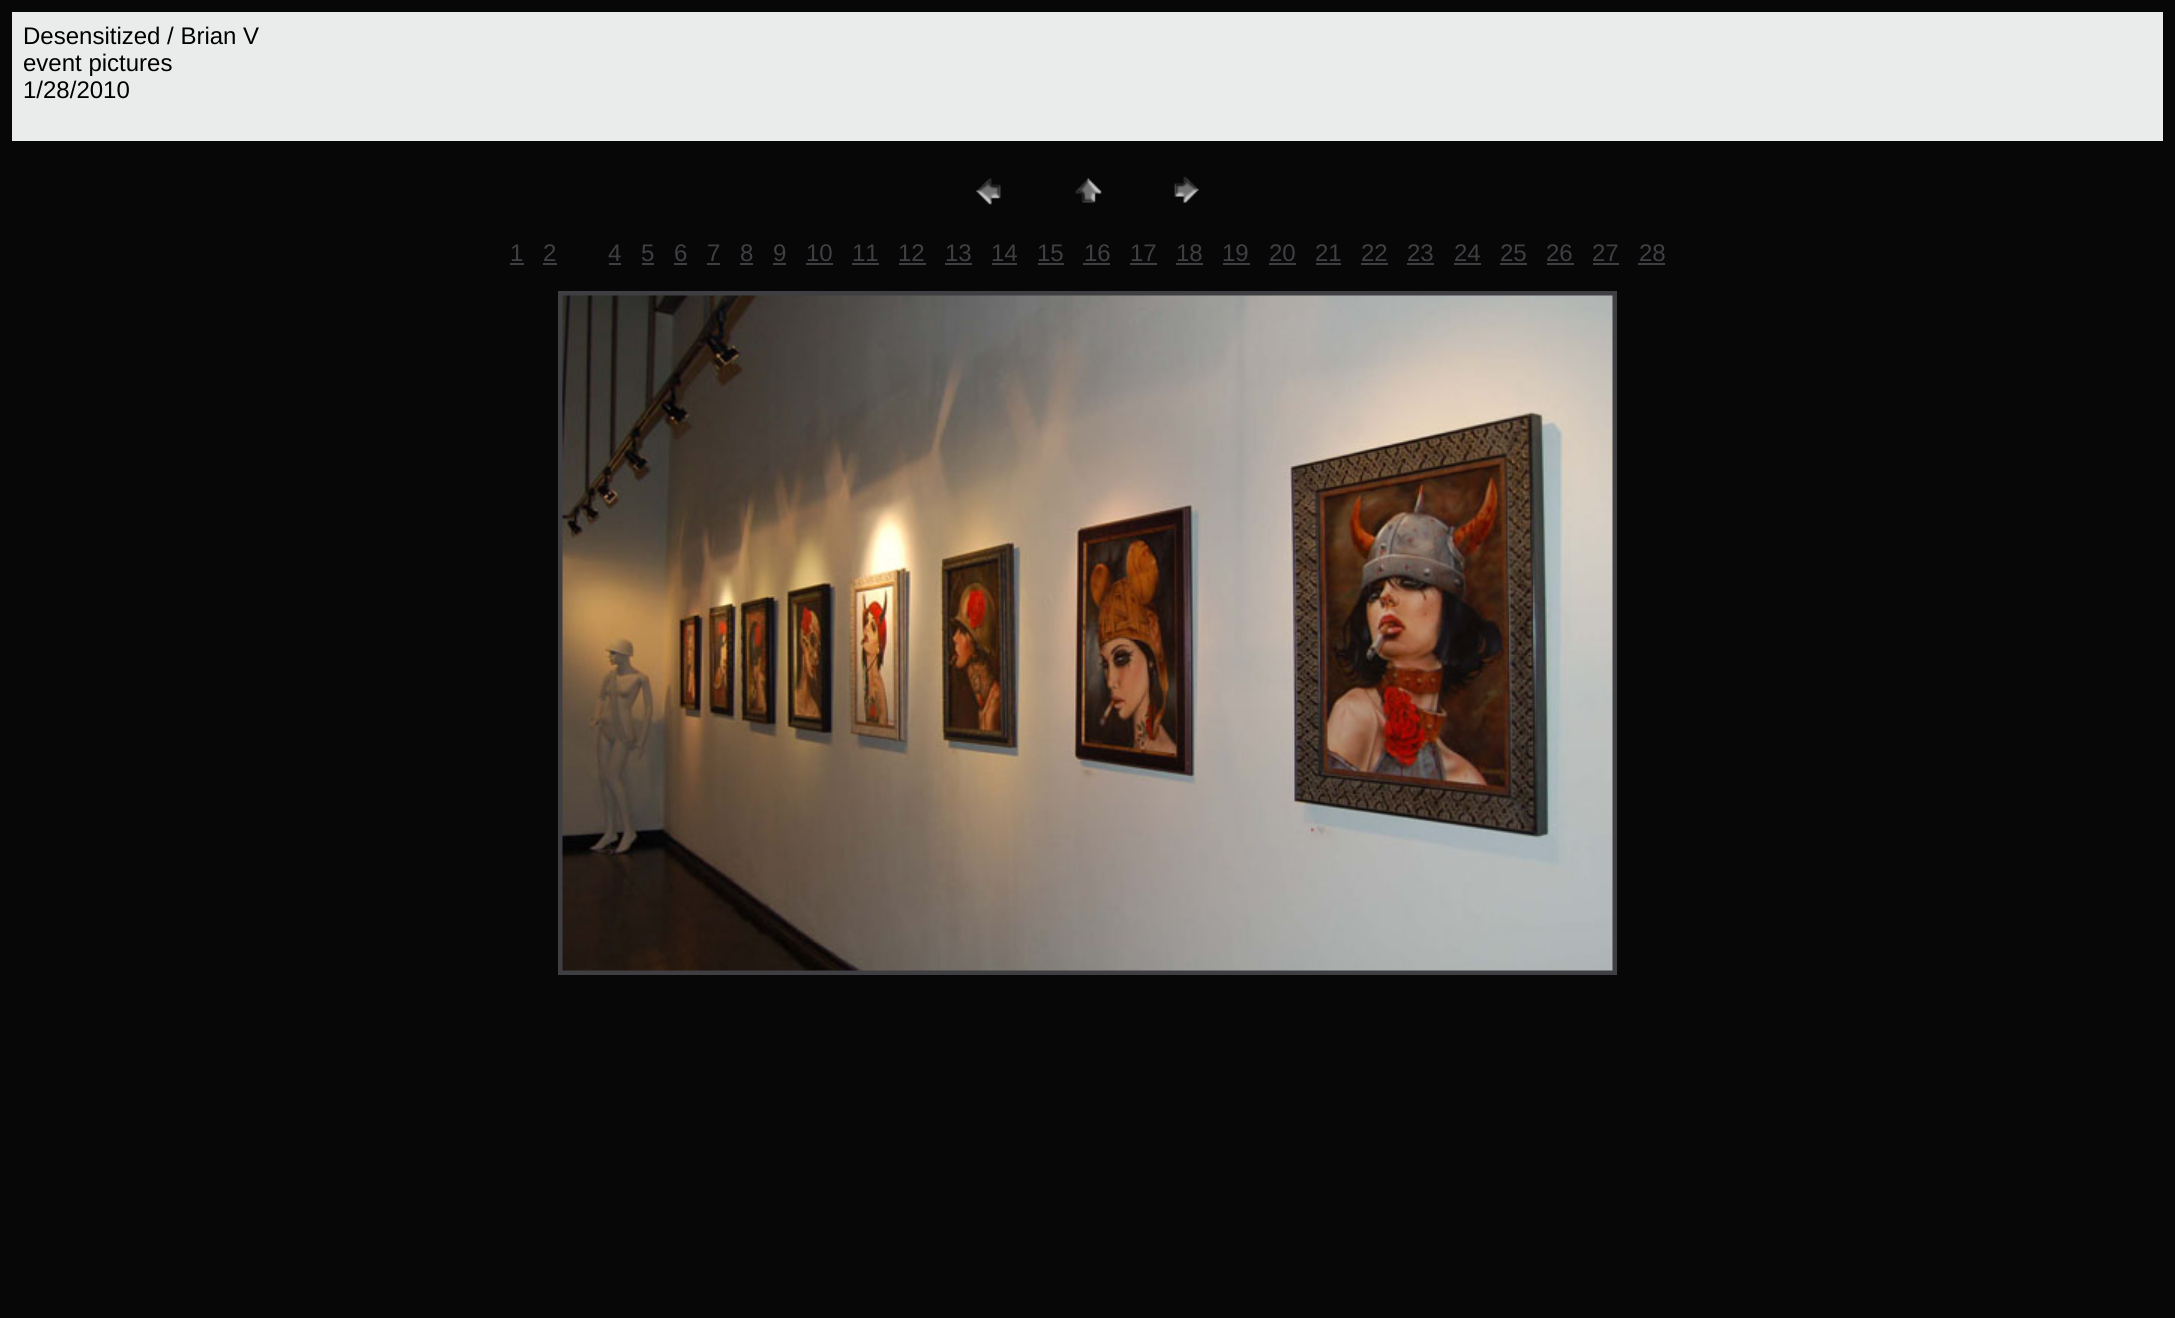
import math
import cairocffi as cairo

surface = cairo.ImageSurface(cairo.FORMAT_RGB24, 2175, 1318)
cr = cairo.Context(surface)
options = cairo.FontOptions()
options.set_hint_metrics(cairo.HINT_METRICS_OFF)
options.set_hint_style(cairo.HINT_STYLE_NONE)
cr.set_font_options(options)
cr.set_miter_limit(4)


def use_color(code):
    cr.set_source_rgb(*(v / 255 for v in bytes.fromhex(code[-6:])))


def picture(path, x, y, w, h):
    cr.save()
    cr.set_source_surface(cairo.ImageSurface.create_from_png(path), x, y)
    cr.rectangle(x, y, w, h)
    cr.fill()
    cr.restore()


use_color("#070707")
cr.paint()
use_color("#eaeceb")
cr.rectangle(12, 12, 2151, 129)
cr.fill()
cr.select_font_face("Liberation Sans")
cr.set_font_size(24)
use_color("#000000")
cr.move_to(23, 44)
cr.show_text("Desensitized / Brian V")
cr.move_to(23, 71)
cr.show_text("event pictures")
cr.move_to(23, 98)
cr.show_text("1/28/2010")
picture("img1.png", 976, 178, 25, 27)
picture("img2.png", 1075, 178, 27, 25)
picture("img3.png", 1174, 176, 25, 27)
use_color("#3f3f43")
cr.move_to(510, 261)
cr.show_text("1")
cr.rectangle(510, 263, 14, 2)
cr.fill()
cr.move_to(543, 261)
cr.show_text("2")
cr.rectangle(543, 263, 14, 2)
cr.fill()
cr.move_to(608, 261)
cr.show_text("4")
cr.rectangle(609, 263, 12, 2)
cr.fill()
cr.move_to(641, 261)
cr.show_text("5")
cr.rectangle(642, 263, 12, 2)
cr.fill()
cr.move_to(674, 261)
cr.show_text("6")
cr.rectangle(674, 263, 13, 2)
cr.fill()
cr.move_to(707, 261)
cr.show_text("7")
cr.rectangle(707, 263, 13, 2)
cr.fill()
cr.move_to(740, 261)
cr.show_text("8")
cr.rectangle(740, 263, 13, 2)
cr.fill()
cr.move_to(773, 261)
cr.show_text("9")
cr.rectangle(773, 263, 13, 2)
cr.fill()
cr.move_to(806, 261)
cr.show_text("10")
cr.rectangle(806, 263, 27, 2)
cr.fill()
cr.move_to(852, 261)
cr.show_text("11")
cr.rectangle(852, 263, 27, 2)
cr.fill()
cr.move_to(898, 261)
cr.show_text("12")
cr.rectangle(899, 263, 27, 2)
cr.fill()
cr.move_to(945, 261)
cr.show_text("13")
cr.rectangle(945, 263, 27, 2)
cr.fill()
cr.move_to(991, 261)
cr.show_text("14")
cr.rectangle(992, 263, 25, 2)
cr.fill()
cr.move_to(1037, 261)
cr.show_text("15")
cr.rectangle(1038, 263, 26, 2)
cr.fill()
cr.move_to(1084, 261)
cr.show_text("16")
cr.rectangle(1083, 263, 27, 2)
cr.fill()
cr.move_to(1130, 261)
cr.show_text("17")
cr.rectangle(1130, 263, 27, 2)
cr.fill()
cr.move_to(1176, 261)
cr.show_text("18")
cr.rectangle(1176, 263, 27, 2)
cr.fill()
cr.move_to(1222, 261)
cr.show_text("19")
cr.rectangle(1223, 263, 27, 2)
cr.fill()
cr.move_to(1269, 261)
cr.show_text("20")
cr.rectangle(1269, 263, 27, 2)
cr.fill()
cr.move_to(1315, 261)
cr.show_text("21")
cr.rectangle(1316, 263, 25, 2)
cr.fill()
cr.move_to(1361, 261)
cr.show_text("22")
cr.rectangle(1361, 263, 27, 2)
cr.fill()
cr.move_to(1407, 261)
cr.show_text("23")
cr.rectangle(1407, 263, 27, 2)
cr.fill()
cr.move_to(1454, 261)
cr.show_text("24")
cr.rectangle(1454, 263, 27, 2)
cr.fill()
cr.move_to(1500, 261)
cr.show_text("25")
cr.rectangle(1500, 263, 27, 2)
cr.fill()
cr.move_to(1546, 261)
cr.show_text("26")
cr.rectangle(1547, 263, 27, 2)
cr.fill()
cr.move_to(1592, 261)
cr.show_text("27")
cr.rectangle(1593, 263, 26, 2)
cr.fill()
cr.move_to(1639, 261)
cr.show_text("28")
cr.rectangle(1638, 263, 27, 2)
cr.fill()
cr.rectangle(560.5, 293.5, 1054, 679)
cr.set_line_width(5)
cr.stroke()
picture("img4.png", 562, 295, 1051, 676)
surface.write_to_png("result.png")
